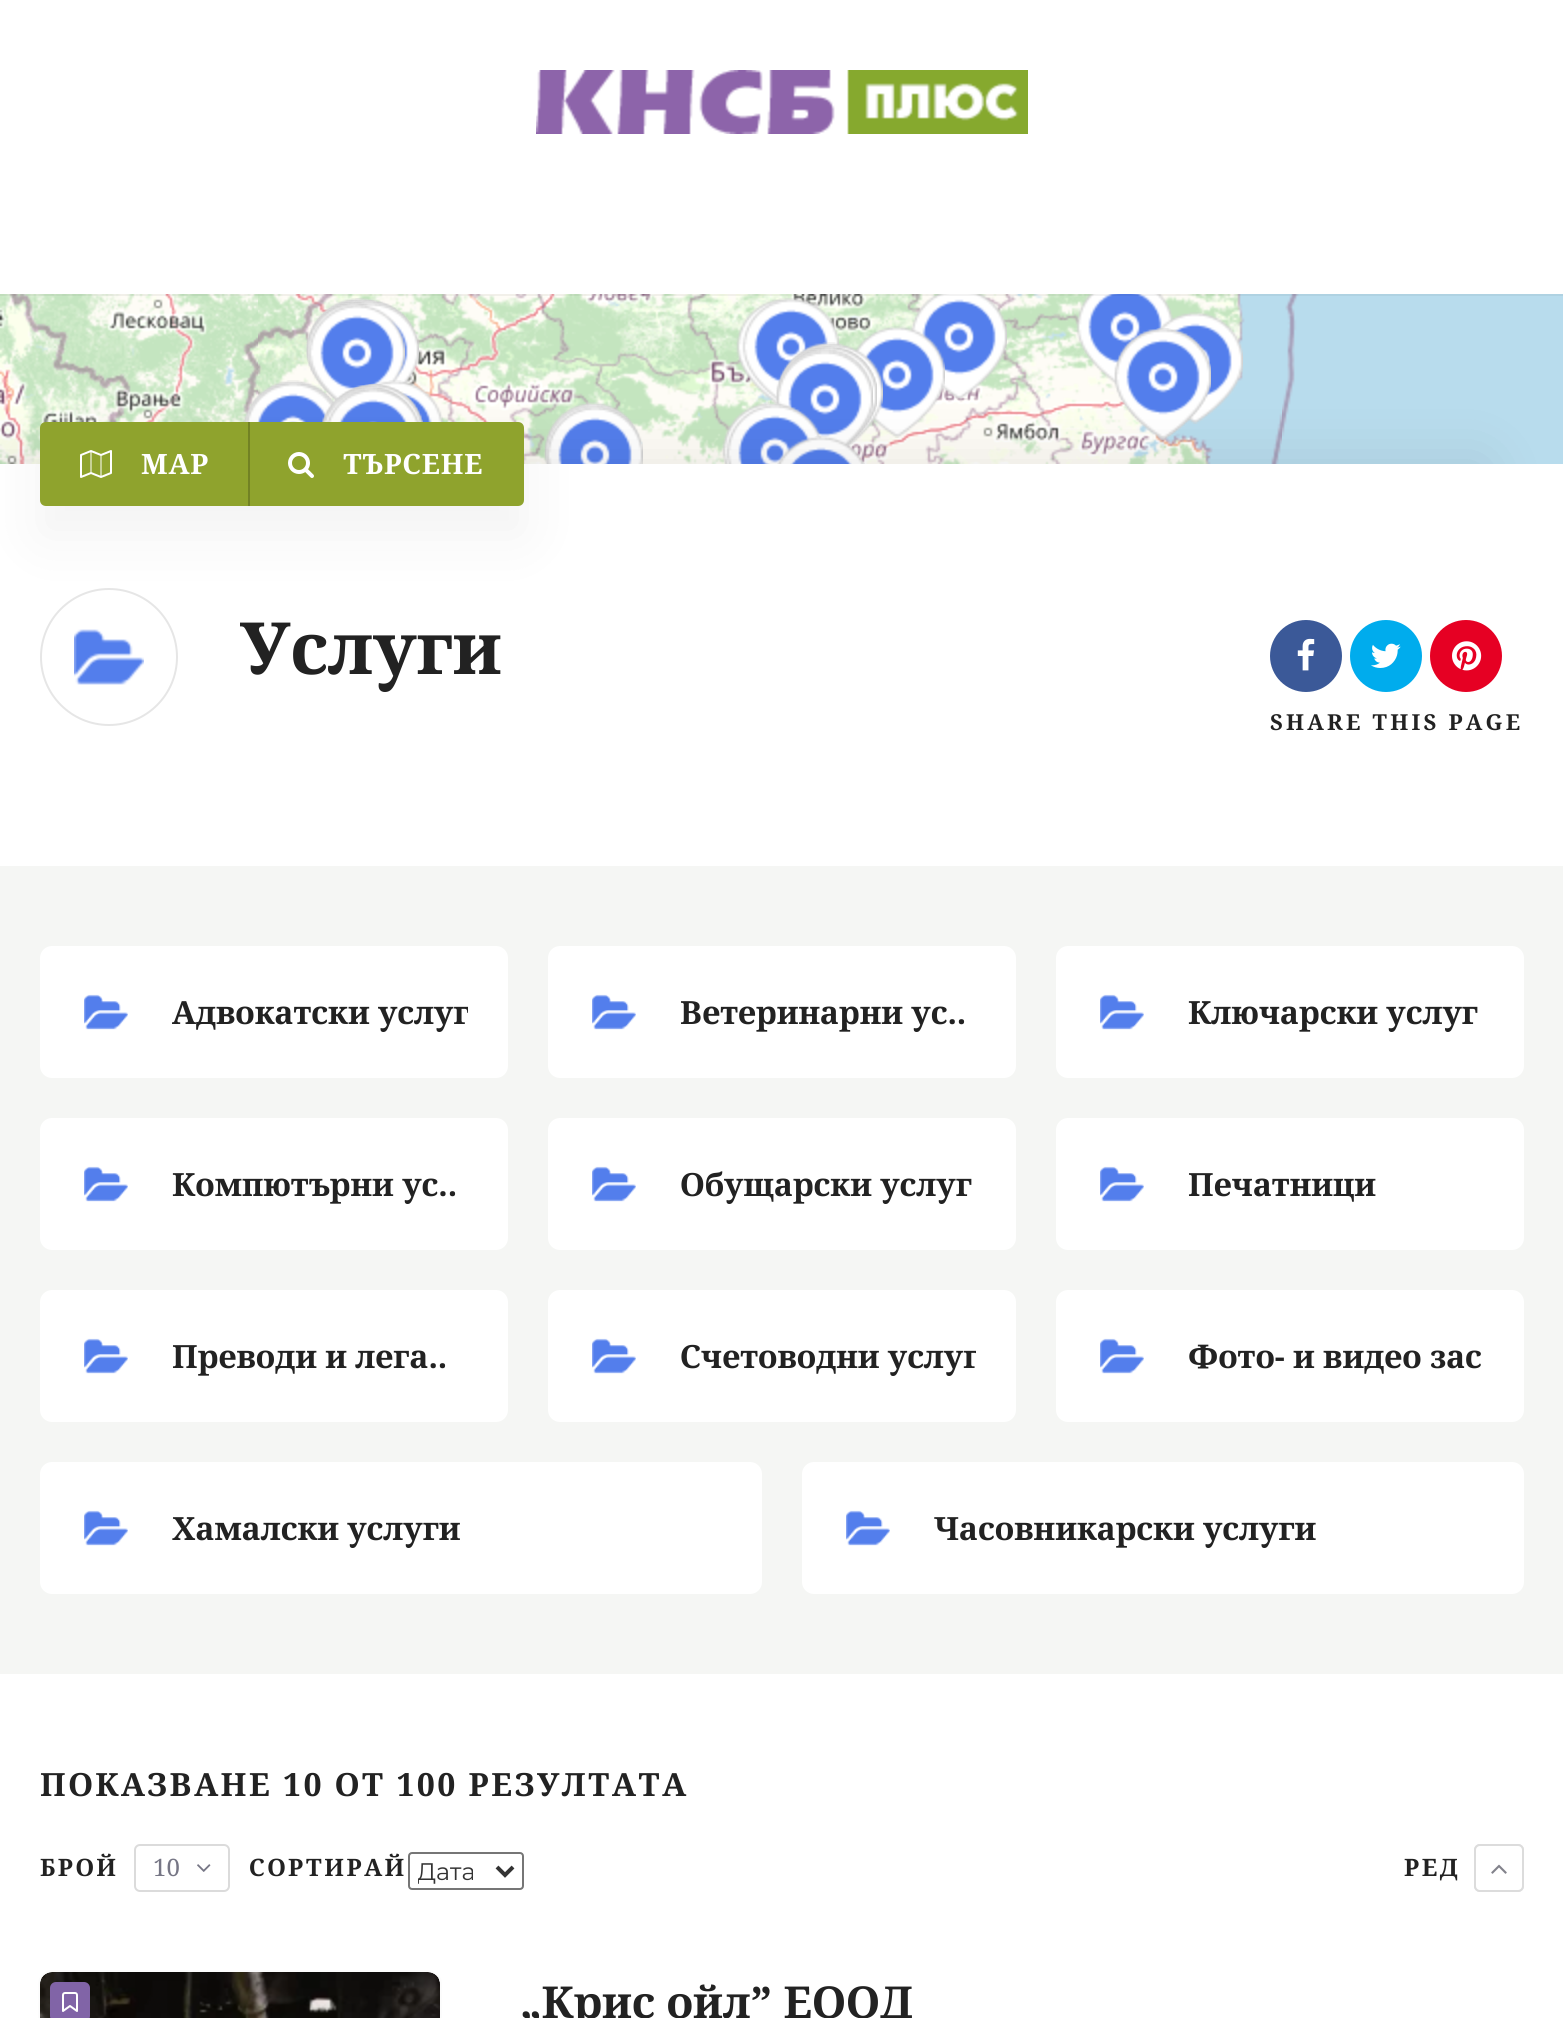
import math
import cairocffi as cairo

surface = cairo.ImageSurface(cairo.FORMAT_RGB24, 1563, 2018)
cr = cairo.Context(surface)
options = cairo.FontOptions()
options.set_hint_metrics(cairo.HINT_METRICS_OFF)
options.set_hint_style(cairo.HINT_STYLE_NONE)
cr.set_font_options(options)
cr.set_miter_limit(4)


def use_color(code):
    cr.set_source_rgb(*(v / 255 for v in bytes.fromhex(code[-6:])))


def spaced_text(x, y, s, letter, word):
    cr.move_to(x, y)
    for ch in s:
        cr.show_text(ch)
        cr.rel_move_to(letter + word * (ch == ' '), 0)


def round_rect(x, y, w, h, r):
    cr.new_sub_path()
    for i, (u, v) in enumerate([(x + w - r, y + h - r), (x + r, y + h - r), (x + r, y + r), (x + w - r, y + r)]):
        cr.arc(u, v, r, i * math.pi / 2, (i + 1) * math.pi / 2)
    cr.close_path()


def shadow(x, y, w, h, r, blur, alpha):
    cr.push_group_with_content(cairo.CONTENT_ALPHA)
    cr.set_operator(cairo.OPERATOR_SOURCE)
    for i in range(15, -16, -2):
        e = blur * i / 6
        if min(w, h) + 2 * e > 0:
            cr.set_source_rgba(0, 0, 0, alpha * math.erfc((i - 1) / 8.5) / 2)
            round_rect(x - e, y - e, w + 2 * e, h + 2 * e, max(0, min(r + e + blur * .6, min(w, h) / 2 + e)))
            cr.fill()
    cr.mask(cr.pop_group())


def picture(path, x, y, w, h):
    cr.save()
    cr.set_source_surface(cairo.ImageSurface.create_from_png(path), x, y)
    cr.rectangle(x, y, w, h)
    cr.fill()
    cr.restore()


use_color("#ffffff")
cr.paint()
picture("img2.png", 0, 294, 258, 170)
picture("img3.png", 258, 294, 512, 170)
picture("img4.png", 770, 294, 512, 170)
picture("img5.png", 1282, 294, 281, 170)
picture("img7.png", 910, 294, 97, 106)
picture("img8.png", 1076, 294, 97, 94)
cr.set_source_rgba(0, 0, 0, 0.05)
cr.rectangle(0, 294, 1563, 2)
cr.fill()
picture("img1.png", 536, 70, 492, 64)
picture("img6.png", 308, 298, 78, 96)
picture("img9.png", 317, 298, 82, 27)
picture("img10.png", 736, 298, 87, 109)
picture("img11.png", 306, 300, 66, 101)
picture("img12.png", 742, 298, 97, 106)
picture("img13.png", 309, 300, 70, 101)
picture("img14.png", 317, 300, 73, 27)
picture("img17.png", 311, 302, 70, 94)
picture("img19.png", 317, 302, 73, 25)
picture("img18.png", 311, 302, 70, 94)
picture("img20.png", 339, 302, 76, 36)
picture("img21.png", 339, 302, 76, 36)
picture("img15.png", 344, 300, 73, 85)
picture("img16.png", 344, 300, 73, 85)
picture("img22.png", 306, 303, 66, 100)
picture("img24.png", 306, 304, 66, 99)
picture("img25.png", 307, 304, 65, 99)
picture("img23.png", 346, 302, 73, 83)
picture("img26.png", 309, 304, 96, 99)
picture("img27.png", 854, 326, 91, 112)
picture("img28.png", 1154, 312, 89, 112)
picture("img29.png", 1114, 328, 97, 112)
picture("img30.png", 780, 342, 94, 41)
picture("img31.png", 1114, 328, 97, 112)
picture("img32.png", 778, 344, 78, 61)
picture("img33.png", 804, 344, 79, 105)
picture("img34.png", 781, 346, 96, 101)
picture("img35.png", 781, 347, 96, 100)
picture("img36.png", 776, 348, 97, 97)
picture("img38.png", 780, 348, 97, 99)
picture("img40.png", 780, 350, 97, 97)
picture("img41.png", 780, 362, 16, 23)
picture("img37.png", 776, 348, 97, 99)
picture("img39.png", 776, 350, 97, 97)
picture("img42.png", 244, 380, 92, 42)
picture("img43.png", 370, 380, 73, 42)
picture("img44.png", 242, 382, 92, 40)
picture("img45.png", 246, 382, 90, 40)
picture("img46.png", 245, 384, 90, 38)
picture("img49.png", 331, 384, 92, 38)
picture("img50.png", 331, 384, 92, 38)
picture("img48.png", 324, 384, 97, 38)
picture("img47.png", 322, 384, 97, 38)
picture("img51.png", 331, 384, 92, 38)
picture("img52.png", 322, 386, 95, 36)
picture("img53.png", 324, 386, 95, 36)
picture("img54.png", 322, 388, 95, 34)
picture("img55.png", 322, 388, 94, 34)
picture("img56.png", 326, 389, 94, 33)
picture("img57.png", 545, 402, 96, 62)
picture("img58.png", 722, 402, 97, 62)
picture("img59.png", 544, 404, 97, 60)
picture("img60.png", 726, 404, 96, 60)
picture("img61.png", 547, 406, 96, 58)
picture("img62.png", 777, 436, 88, 28)
cr.arc(109, 657, 68, 0, 2 * math.pi)
use_color("#e6e6e6")
cr.stroke()
picture("img65.png", 74, 629, 70, 56)
cr.save()
cr.rectangle(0, 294, 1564, 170)
cr.clip()
use_color("#000000")
shadow(-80, 464, 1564, 200, 0, 30, 0.1)
cr.restore()
use_color("#000000")
shadow(40, 452, 484, 84, 0, 30, 0.05)
use_color("#8fa32d")
cr.new_path()
cr.move_to(46, 422)
cr.line_to(248, 422)
cr.line_to(248, 506)
cr.line_to(46, 506)
cr.curve_to(42.5, 506, 40, 503.5, 40, 500)
cr.line_to(40, 428)
cr.curve_to(40, 424.5, 42.5, 422, 46, 422)
cr.close_path()
cr.fill()
picture("img63.png", 80, 450, 32, 28)
cr.select_font_face("Noto Serif", cairo.FONT_SLANT_NORMAL, cairo.FONT_WEIGHT_BOLD)
cr.set_font_size(28)
use_color("#ffffff")
spaced_text(141, 474, "MAP", 0.75, 0)
use_color("#8fa32d")
cr.new_path()
cr.move_to(248, 422)
cr.line_to(518, 422)
cr.curve_to(521.5, 422, 524, 424.5, 524, 428)
cr.line_to(524, 500)
cr.curve_to(524, 503.5, 521.5, 506, 518, 506)
cr.line_to(248, 506)
cr.close_path()
cr.fill()
use_color("#728224")
cr.rectangle(248, 422, 2, 84)
cr.fill()
picture("img64.png", 288, 452, 26, 26)
use_color("#ffffff")
spaced_text(343, 474, "ТЪРСЕНЕ", 0.75, 0)
cr.set_font_size(72)
use_color("#222222")
cr.move_to(240, 674)
cr.show_text("Услуги")
use_color("#3b5998")
cr.new_path()
cr.arc(1306, 656, 36, 0, 2 * math.pi)
cr.fill()
picture("img66.png", 1297, 638, 18, 33)
use_color("#00aced")
cr.arc(1386, 656, 36, 0, 2 * math.pi)
cr.fill()
picture("img67.png", 1371, 643, 30, 25)
use_color("#e60023")
cr.arc(1466, 656, 36, 0, 2 * math.pi)
cr.fill()
picture("img68.png", 1452, 641, 30, 30)
cr.set_font_size(22)
use_color("#222222")
spaced_text(1270, 730, "SHARE THIS PAGE", 3.25, 0)
use_color("#f5f6f4")
cr.rectangle(0, 866, 1563, 808)
cr.fill()
use_color("#ffffff")
round_rect(40, 946, 468, 132, 12)
cr.fill()
picture("img69.png", 84, 994, 44, 36)
cr.save()
cr.rectangle(172, 992, 296, 40)
cr.clip()
cr.set_font_size(32)
use_color("#222222")
cr.move_to(172, 1024)
cr.show_text("Адвокатски услуг")
cr.restore()
round_rect(548, 946, 468, 132, 12)
cr.fill()
picture("img69.png", 592, 994, 44, 36)
cr.set_font_size(32)
use_color("#222222")
cr.move_to(680, 1024)
cr.show_text("Ветеринарни ус..")
use_color("#ffffff")
round_rect(1056, 946, 468, 132, 12)
cr.fill()
picture("img69.png", 1100, 994, 44, 36)
use_color("#222222")
cr.move_to(1188, 1024)
cr.show_text("Ключарски услуг")
use_color("#ffffff")
round_rect(40, 1118, 468, 132, 12)
cr.fill()
picture("img70.png", 84, 1166, 44, 36)
use_color("#222222")
cr.move_to(172, 1196)
cr.show_text("Компютърни ус..")
use_color("#ffffff")
round_rect(548, 1118, 468, 132, 12)
cr.fill()
picture("img70.png", 592, 1166, 44, 36)
use_color("#222222")
cr.move_to(680, 1196)
cr.show_text("Обущарски услуг")
use_color("#ffffff")
round_rect(1056, 1118, 468, 132, 12)
cr.fill()
picture("img70.png", 1100, 1166, 44, 36)
use_color("#222222")
cr.move_to(1188, 1196)
cr.show_text("Печатници")
use_color("#ffffff")
round_rect(40, 1290, 468, 132, 12)
cr.fill()
picture("img71.png", 84, 1338, 44, 36)
use_color("#222222")
cr.move_to(172, 1368)
cr.show_text("Преводи и лега..")
use_color("#ffffff")
round_rect(548, 1290, 468, 132, 12)
cr.fill()
picture("img71.png", 592, 1338, 44, 36)
cr.save()
cr.rectangle(680, 1336, 296, 40)
cr.clip()
use_color("#222222")
cr.move_to(680, 1368)
cr.show_text("Счетоводни услуг")
cr.restore()
round_rect(1056, 1290, 468, 132, 12)
cr.fill()
picture("img71.png", 1100, 1338, 44, 36)
use_color("#222222")
cr.move_to(1188, 1368)
cr.show_text("Фото- и видео зас")
use_color("#ffffff")
round_rect(40, 1462, 722, 132, 12)
cr.fill()
picture("img71.png", 84, 1510, 44, 36)
cr.save()
cr.rectangle(172, 1508, 288, 40)
cr.clip()
use_color("#222222")
cr.move_to(172, 1540)
cr.show_text("Хамалски услуги")
cr.restore()
round_rect(802, 1462, 722, 132, 12)
cr.fill()
picture("img71.png", 846, 1510, 44, 36)
cr.save()
cr.rectangle(934, 1508, 382, 40)
cr.clip()
use_color("#222222")
cr.move_to(934, 1540)
cr.show_text("Часовникарски услуги")
cr.restore()
use_color("#222222")
spaced_text(40, 1796, "ПОКАЗВАНЕ 10 ОТ 100 РЕЗУЛТАТА", 2.4, 0)
cr.set_font_size(24)
spaced_text(40, 1876, "БРОЙ", 2.4, 0)
round_rect(135, 1845, 94, 46, 5)
use_color("#dbdbdb")
cr.stroke()
cr.select_font_face("Noto Serif")
use_color("#767685")
cr.move_to(153, 1876)
cr.show_text("10")
picture("img72.png", 197, 1864, 14, 8)
cr.select_font_face("Noto Serif", cairo.FONT_SLANT_NORMAL, cairo.FONT_WEIGHT_BOLD)
use_color("#222222")
spaced_text(249, 1876, "СОРТИРАЙ", 2.4, 0)
round_rect(409, 1853, 114, 36, 3)
use_color("#767676")
cr.stroke()
cr.new_path()
cr.move_to(497, 1867)
cr.line_to(505, 1875)
cr.line_to(513, 1867)
use_color("#333333")
cr.set_line_width(4)
cr.stroke()
cr.save()
cr.rectangle(418, 1854, 72, 34)
cr.clip()
cr.select_font_face("Montserrat")
cr.move_to(417, 1880)
cr.show_text("Дата")
cr.restore()
round_rect(1475, 1845, 48, 46, 5)
use_color("#dbdbdb")
cr.set_line_width(2)
cr.stroke()
use_color("#222222")
spaced_text(1404, 1876, "РЕД", 2.4, 0)
use_color("#ffffff")
round_rect(1474, 1844, 50, 48, 6)
cr.fill()
round_rect(1475, 1845, 48, 46, 5)
cr.set_source_rgba(0, 0, 0, 0.14)
cr.stroke()
picture("img73.png", 1491, 1864, 16, 10)
round_rect(39, 1971, 402, 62, 13)
use_color("#fcfcfc")
cr.stroke()
picture("img74.png", 40, 1972, 400, 46)
use_color("#8164a7")
round_rect(50, 1982, 40, 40, 6)
cr.fill()
picture("img75.png", 62, 1992, 16, 20)
cr.set_font_size(44)
use_color("#222222")
cr.move_to(520, 2018)
cr.show_text("„Крис ойл” ЕООД")
surface.write_to_png("result.png")
